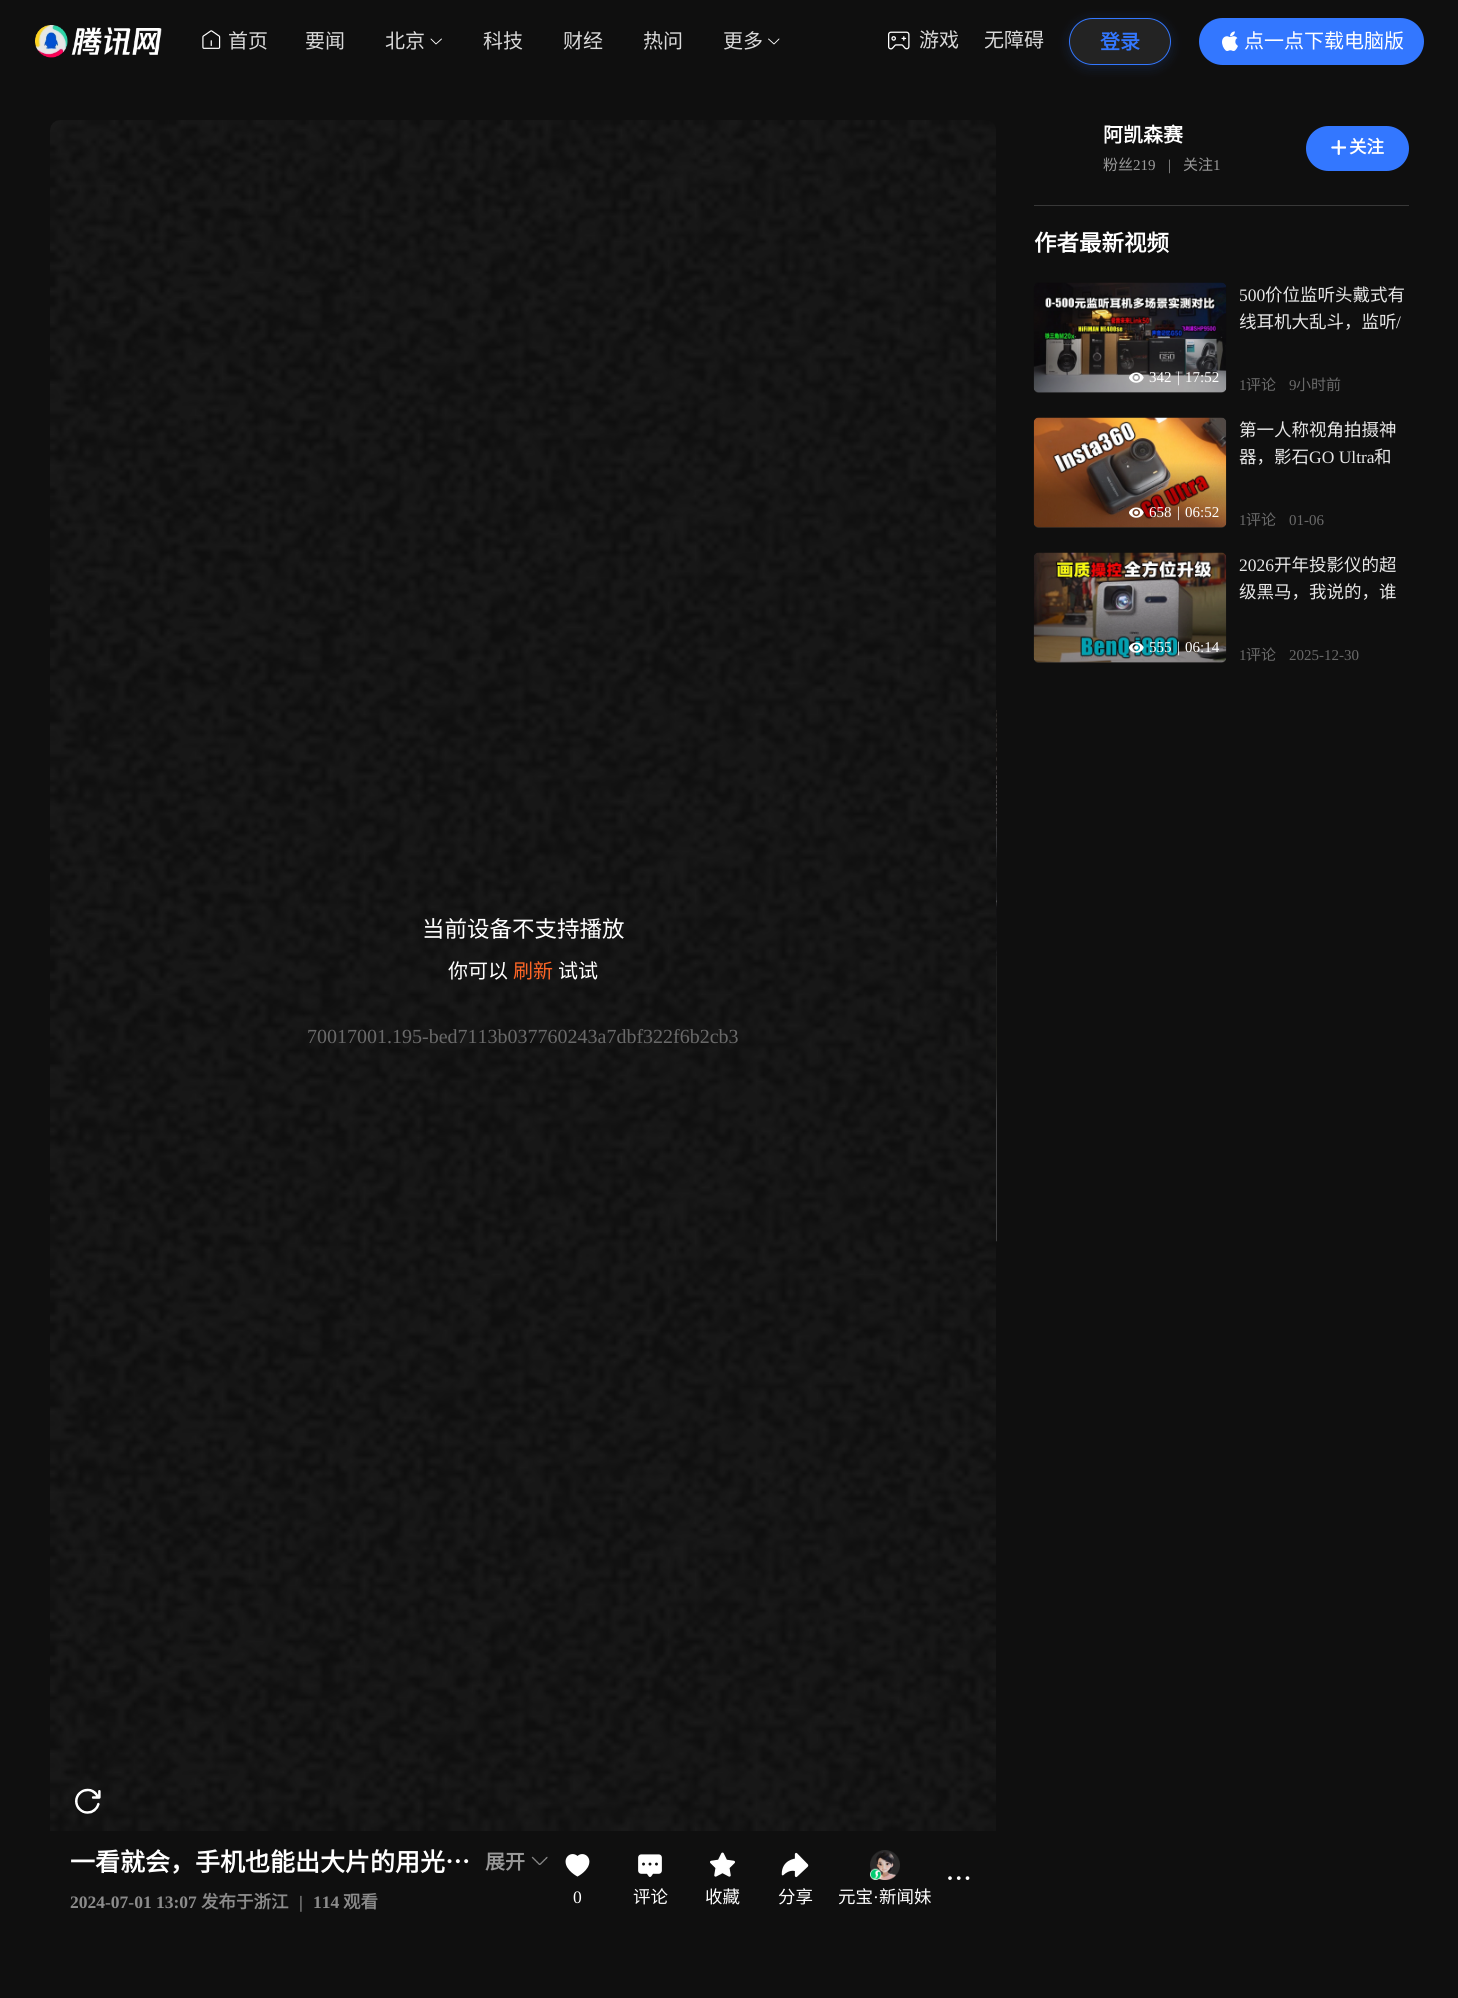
import math
import cairocffi as cairo

surface = cairo.ImageSurface(cairo.FORMAT_RGB24, 1458, 1998)
cr = cairo.Context(surface)
options = cairo.FontOptions()
options.set_hint_metrics(cairo.HINT_METRICS_OFF)
options.set_hint_style(cairo.HINT_STYLE_NONE)
cr.set_font_options(options)
cr.set_miter_limit(4)


def use_color(code):
    cr.set_source_rgb(*(v / 255 for v in bytes.fromhex(code[-6:])))


def round_rect(x, y, w, h, r):
    cr.new_sub_path()
    for i, (u, v) in enumerate([(x + w - r, y + h - r), (x + r, y + h - r), (x + r, y + r), (x + w - r, y + r)]):
        cr.arc(u, v, r, i * math.pi / 2, (i + 1) * math.pi / 2)
    cr.close_path()


def shadow(x, y, w, h, r, blur, alpha):
    cr.push_group_with_content(cairo.CONTENT_ALPHA)
    cr.set_operator(cairo.OPERATOR_SOURCE)
    for i in range(15, -16, -2):
        e = blur * i / 6
        if min(w, h) + 2 * e > 0:
            cr.set_source_rgba(0, 0, 0, alpha * math.erfc((i - 1) / 8.5) / 2)
            round_rect(x - e, y - e, w + 2 * e, h + 2 * e, max(0, min(r + e + blur * .6, min(w, h) / 2 + e)))
            cr.fill()
    cr.mask(cr.pop_group())


def picture(path, x, y, w, h):
    cr.save()
    cr.set_source_surface(cairo.ImageSurface.create_from_png(path), x, y)
    cr.rectangle(x, y, w, h)
    cr.fill()
    cr.restore()


use_color("#0f0f0f")
cr.paint()
picture("img1.png", 35, 25, 127, 33)
picture("img2.png", 202, 30, 19, 19)
cr.select_font_face("Noto Sans CJK SC")
cr.set_font_size(20)
use_color("#d9d9d9")
cr.move_to(228, 48)
cr.show_text("首页")
cr.move_to(305, 48)
cr.show_text("要闻")
cr.move_to(385, 48)
cr.show_text("北京")
cr.new_path()
cr.move_to(441.5, 39)
cr.line_to(436, 44)
cr.line_to(431, 39)
use_color("#ffffff")
cr.set_line_width(0.9)
cr.set_line_cap(cairo.LINE_CAP_ROUND)
cr.set_line_join(cairo.LINE_JOIN_ROUND)
cr.stroke()
use_color("#d9d9d9")
cr.move_to(483, 48)
cr.show_text("科技")
cr.move_to(563, 48)
cr.show_text("财经")
cr.move_to(643, 48)
cr.show_text("热问")
cr.move_to(723, 48)
cr.show_text("更多")
cr.new_path()
cr.move_to(779, 39)
cr.line_to(774, 44)
cr.line_to(768.5, 39)
use_color("#ffffff")
cr.stroke()
picture("img3.png", 888, 31, 22, 19)
use_color("#d9d9d9")
cr.move_to(919, 47)
cr.show_text("游戏")
cr.move_to(984, 47)
cr.show_text("无障碍")
cr.save()
cr.set_fill_rule(cairo.FILL_RULE_EVEN_ODD)
cr.new_path()
cr.move_to(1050, 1)
cr.line_to(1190, 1)
cr.line_to(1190, 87)
cr.line_to(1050, 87)
cr.close_path()
cr.move_to(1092.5, 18)
cr.line_to(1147.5, 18)
cr.curve_to(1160.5, 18, 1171, 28.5, 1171, 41.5)
cr.curve_to(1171, 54.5, 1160.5, 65, 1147.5, 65)
cr.line_to(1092.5, 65)
cr.curve_to(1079.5, 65, 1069, 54.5, 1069, 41.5)
cr.curve_to(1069, 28.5, 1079.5, 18, 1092.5, 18)
cr.close_path()
cr.clip()
use_color("#3377ff")
shadow(1069, 20, 102, 48, 24, 6, 0.16)
cr.restore()
cr.set_source_rgba(0.851, 0.851, 0.851, 0.1)
round_rect(1069.5, 18.5, 101, 46, 23)
cr.fill_preserve()
use_color("#3377ff")
cr.set_line_width(1)
cr.set_line_cap(cairo.LINE_CAP_BUTT)
cr.set_line_join(cairo.LINE_JOIN_MITER)
cr.stroke()
cr.select_font_face("Noto Sans CJK SC", cairo.FONT_SLANT_NORMAL, cairo.FONT_WEIGHT_BOLD)
cr.move_to(1100, 49)
cr.show_text("登录")
round_rect(1199, 18, 225, 47, 23.5)
cr.fill()
picture("img4.png", 1222, 31, 16, 20)
cr.select_font_face("Noto Sans CJK SC")
use_color("#ffffff")
cr.move_to(1244, 48)
cr.show_text("点一点下载电脑版")
cr.select_font_face("Noto Sans CJK SC", cairo.FONT_SLANT_NORMAL, cairo.FONT_WEIGHT_BOLD)
cr.move_to(1103, 142)
cr.show_text("阿凯森赛")
cr.select_font_face("Noto Sans CJK SC")
cr.set_font_size(15)
use_color("#999999")
cr.move_to(1103, 170)
cr.show_text("粉丝")
cr.select_font_face("Liberation Serif")
cr.move_to(1133, 170)
cr.show_text("219")
cr.move_to(1168, 170)
cr.show_text("|")
cr.select_font_face("Noto Sans CJK SC")
cr.move_to(1183, 170)
cr.show_text("关注")
cr.select_font_face("Liberation Serif")
cr.move_to(1213, 170)
cr.show_text("1")
use_color("#3377ff")
round_rect(1306, 126, 103, 45, 22.5)
cr.fill()
picture("img5.png", 1331, 140, 15, 15)
cr.select_font_face("Noto Sans CJK SC", cairo.FONT_SLANT_NORMAL, cairo.FONT_WEIGHT_BOLD)
cr.set_font_size(17.5)
use_color("#ffffff")
cr.move_to(1349, 153)
cr.show_text("关注")
use_color("#383838")
cr.rectangle(1034, 205, 375, 1)
cr.fill()
cr.set_font_size(22.5)
use_color("#ffffff")
cr.move_to(1034, 251)
cr.show_text("作者最新视频")
use_color("#333333")
round_rect(1034, 283, 192, 110, 5)
cr.fill()
picture("img6.png", 1033, 282, 194, 111)
gradient = cairo.LinearGradient(1130, 393, 1130, 283)
gradient.add_color_stop_rgba(0.3, 0, 0, 0, 0.3)
gradient.add_color_stop_rgba(0.6, 0, 0, 0, 0)
cr.set_source(gradient)
round_rect(1034, 283, 192, 110, 5)
cr.fill()
picture("img7.png", 1129, 372, 15, 11)
cr.select_font_face("Liberation Serif")
cr.set_font_size(15)
use_color("#ffffff")
cr.move_to(1149, 382)
cr.show_text("342")
cr.move_to(1177, 382)
cr.show_text("|")
cr.move_to(1185, 382)
cr.show_text("17:52")
cr.set_font_size(17.5)
use_color("#e6e6e6")
cr.move_to(1239, 301)
cr.show_text("500")
cr.select_font_face("Noto Sans CJK SC")
cr.move_to(1265, 301)
cr.show_text("价位监听头戴式有")
cr.move_to(1239, 328)
cr.show_text("线耳机大乱斗，监听")
cr.select_font_face("Liberation Serif")
cr.move_to(1396, 328)
cr.show_text("/")
cr.set_font_size(15)
use_color("#696969")
cr.move_to(1239, 390)
cr.show_text("1")
cr.select_font_face("Noto Sans CJK SC")
cr.move_to(1246, 390)
cr.show_text("评论")
cr.select_font_face("Liberation Serif")
cr.move_to(1289, 390)
cr.show_text("9")
cr.select_font_face("Noto Sans CJK SC")
cr.move_to(1296, 390)
cr.show_text("小时前")
use_color("#333333")
round_rect(1034, 418, 192, 110, 5)
cr.fill()
picture("img8.png", 1033, 417, 194, 111)
gradient = cairo.LinearGradient(1130, 528, 1130, 418)
gradient.add_color_stop_rgba(0.3, 0, 0, 0, 0.3)
gradient.add_color_stop_rgba(0.6, 0, 0, 0, 0)
cr.set_source(gradient)
round_rect(1034, 418, 192, 110, 5)
cr.fill()
picture("img9.png", 1129, 507, 15, 11)
cr.select_font_face("Liberation Serif")
use_color("#ffffff")
cr.move_to(1149, 517)
cr.show_text("658")
cr.move_to(1177, 517)
cr.show_text("|")
cr.move_to(1185, 517)
cr.show_text("06:52")
cr.select_font_face("Noto Sans CJK SC")
cr.set_font_size(17.5)
use_color("#e6e6e6")
cr.move_to(1239, 436)
cr.show_text("第一人称视角拍摄神")
cr.move_to(1239, 463)
cr.show_text("器，影石")
cr.select_font_face("Liberation Serif")
cr.move_to(1309, 463)
cr.show_text("GO Ultra")
cr.select_font_face("Noto Sans CJK SC")
cr.move_to(1374, 463)
cr.show_text("和")
cr.select_font_face("Liberation Serif")
cr.set_font_size(15)
use_color("#696969")
cr.move_to(1239, 525)
cr.show_text("1")
cr.select_font_face("Noto Sans CJK SC")
cr.move_to(1246, 525)
cr.show_text("评论")
cr.select_font_face("Liberation Serif")
cr.move_to(1289, 525)
cr.show_text("01-06")
use_color("#333333")
round_rect(1034, 553, 192, 110, 5)
cr.fill()
picture("img10.png", 1033, 552, 194, 111)
gradient = cairo.LinearGradient(1130, 663, 1130, 553)
gradient.add_color_stop_rgba(0.3, 0, 0, 0, 0.3)
gradient.add_color_stop_rgba(0.6, 0, 0, 0, 0)
cr.set_source(gradient)
round_rect(1034, 553, 192, 110, 5)
cr.fill()
picture("img11.png", 1129, 642, 15, 11)
use_color("#ffffff")
cr.move_to(1149, 652)
cr.show_text("555")
cr.move_to(1177, 652)
cr.show_text("|")
cr.move_to(1185, 652)
cr.show_text("06:14")
cr.set_font_size(17.5)
use_color("#e6e6e6")
cr.move_to(1239, 571)
cr.show_text("2026")
cr.select_font_face("Noto Sans CJK SC")
cr.move_to(1274, 571)
cr.show_text("开年投影仪的超")
cr.move_to(1239, 598)
cr.show_text("级黑马，我说的，谁")
cr.select_font_face("Liberation Serif")
cr.set_font_size(15)
use_color("#696969")
cr.move_to(1239, 660)
cr.show_text("1")
cr.select_font_face("Noto Sans CJK SC")
cr.move_to(1246, 660)
cr.show_text("评论")
cr.select_font_face("Liberation Serif")
cr.move_to(1289, 660)
cr.show_text("2025-12-30")
picture("img12.png", 50, 120, 946, 1711)
cr.select_font_face("Noto Sans CJK SC")
cr.set_font_size(22.5)
use_color("#ffffff")
cr.move_to(422, 937)
cr.show_text("当前设备不支持播放")
cr.set_font_size(20)
cr.move_to(448, 978)
cr.show_text("你可以")
use_color("#fc6526")
cr.move_to(513, 978)
cr.show_text("刷新")
use_color("#ffffff")
cr.move_to(558, 978)
cr.show_text("试试")
cr.select_font_face("Liberation Serif")
use_color("#696969")
cr.move_to(307, 1043)
cr.show_text("70017001.195-bed7113b037760243a7dbf322f6b2cb3")
picture("img13.png", 996, 710, 1, 532)
cr.select_font_face("Noto Sans CJK SC", cairo.FONT_SLANT_NORMAL, cairo.FONT_WEIGHT_BOLD)
cr.set_font_size(25)
use_color("#ffffff")
cr.move_to(70, 1871)
cr.show_text("一看就会，手机也能出大片的用光…")
cr.set_font_size(20)
use_color("#999999")
cr.move_to(485, 1869)
cr.show_text("展开")
picture("img14.png", 531, 1856, 17, 9)
cr.select_font_face("Liberation Serif", cairo.FONT_SLANT_NORMAL, cairo.FONT_WEIGHT_BOLD)
cr.set_font_size(17.5)
use_color("#8b8b8b")
cr.move_to(70, 1908)
cr.show_text("2024-07-01 13:07")
cr.select_font_face("Noto Sans CJK SC", cairo.FONT_SLANT_NORMAL, cairo.FONT_WEIGHT_BOLD)
cr.move_to(201, 1908)
cr.show_text("发布于浙江")
cr.select_font_face("Liberation Serif", cairo.FONT_SLANT_NORMAL, cairo.FONT_WEIGHT_BOLD)
cr.move_to(299, 1908)
cr.show_text("|")
cr.move_to(313, 1908)
cr.show_text("114")
cr.select_font_face("Noto Sans CJK SC", cairo.FONT_SLANT_NORMAL, cairo.FONT_WEIGHT_BOLD)
cr.move_to(343, 1908)
cr.show_text("观看")
picture("img15.png", 948, 1876, 22, 4)
picture("img16.png", 565, 1854, 25, 23)
cr.select_font_face("Liberation Serif")
use_color("#ffffff")
cr.move_to(573, 1903)
cr.show_text("0")
picture("img17.png", 638, 1854, 24, 23)
cr.select_font_face("Noto Sans CJK SC")
cr.move_to(633, 1903)
cr.show_text("评论")
picture("img18.png", 710, 1852, 25, 25)
cr.move_to(705, 1903)
cr.show_text("收藏")
picture("img19.png", 781, 1852, 28, 26)
cr.move_to(778, 1903)
cr.show_text("分享")
picture("img20.png", 870, 1850, 30, 30)
picture("img21.png", 870, 1868, 12, 12)
cr.move_to(838, 1903)
cr.show_text("元宝")
cr.select_font_face("Liberation Serif")
cr.move_to(873, 1903)
cr.show_text("·")
cr.select_font_face("Noto Sans CJK SC")
cr.move_to(879, 1903)
cr.show_text("新闻妹")
surface.write_to_png("result.png")
